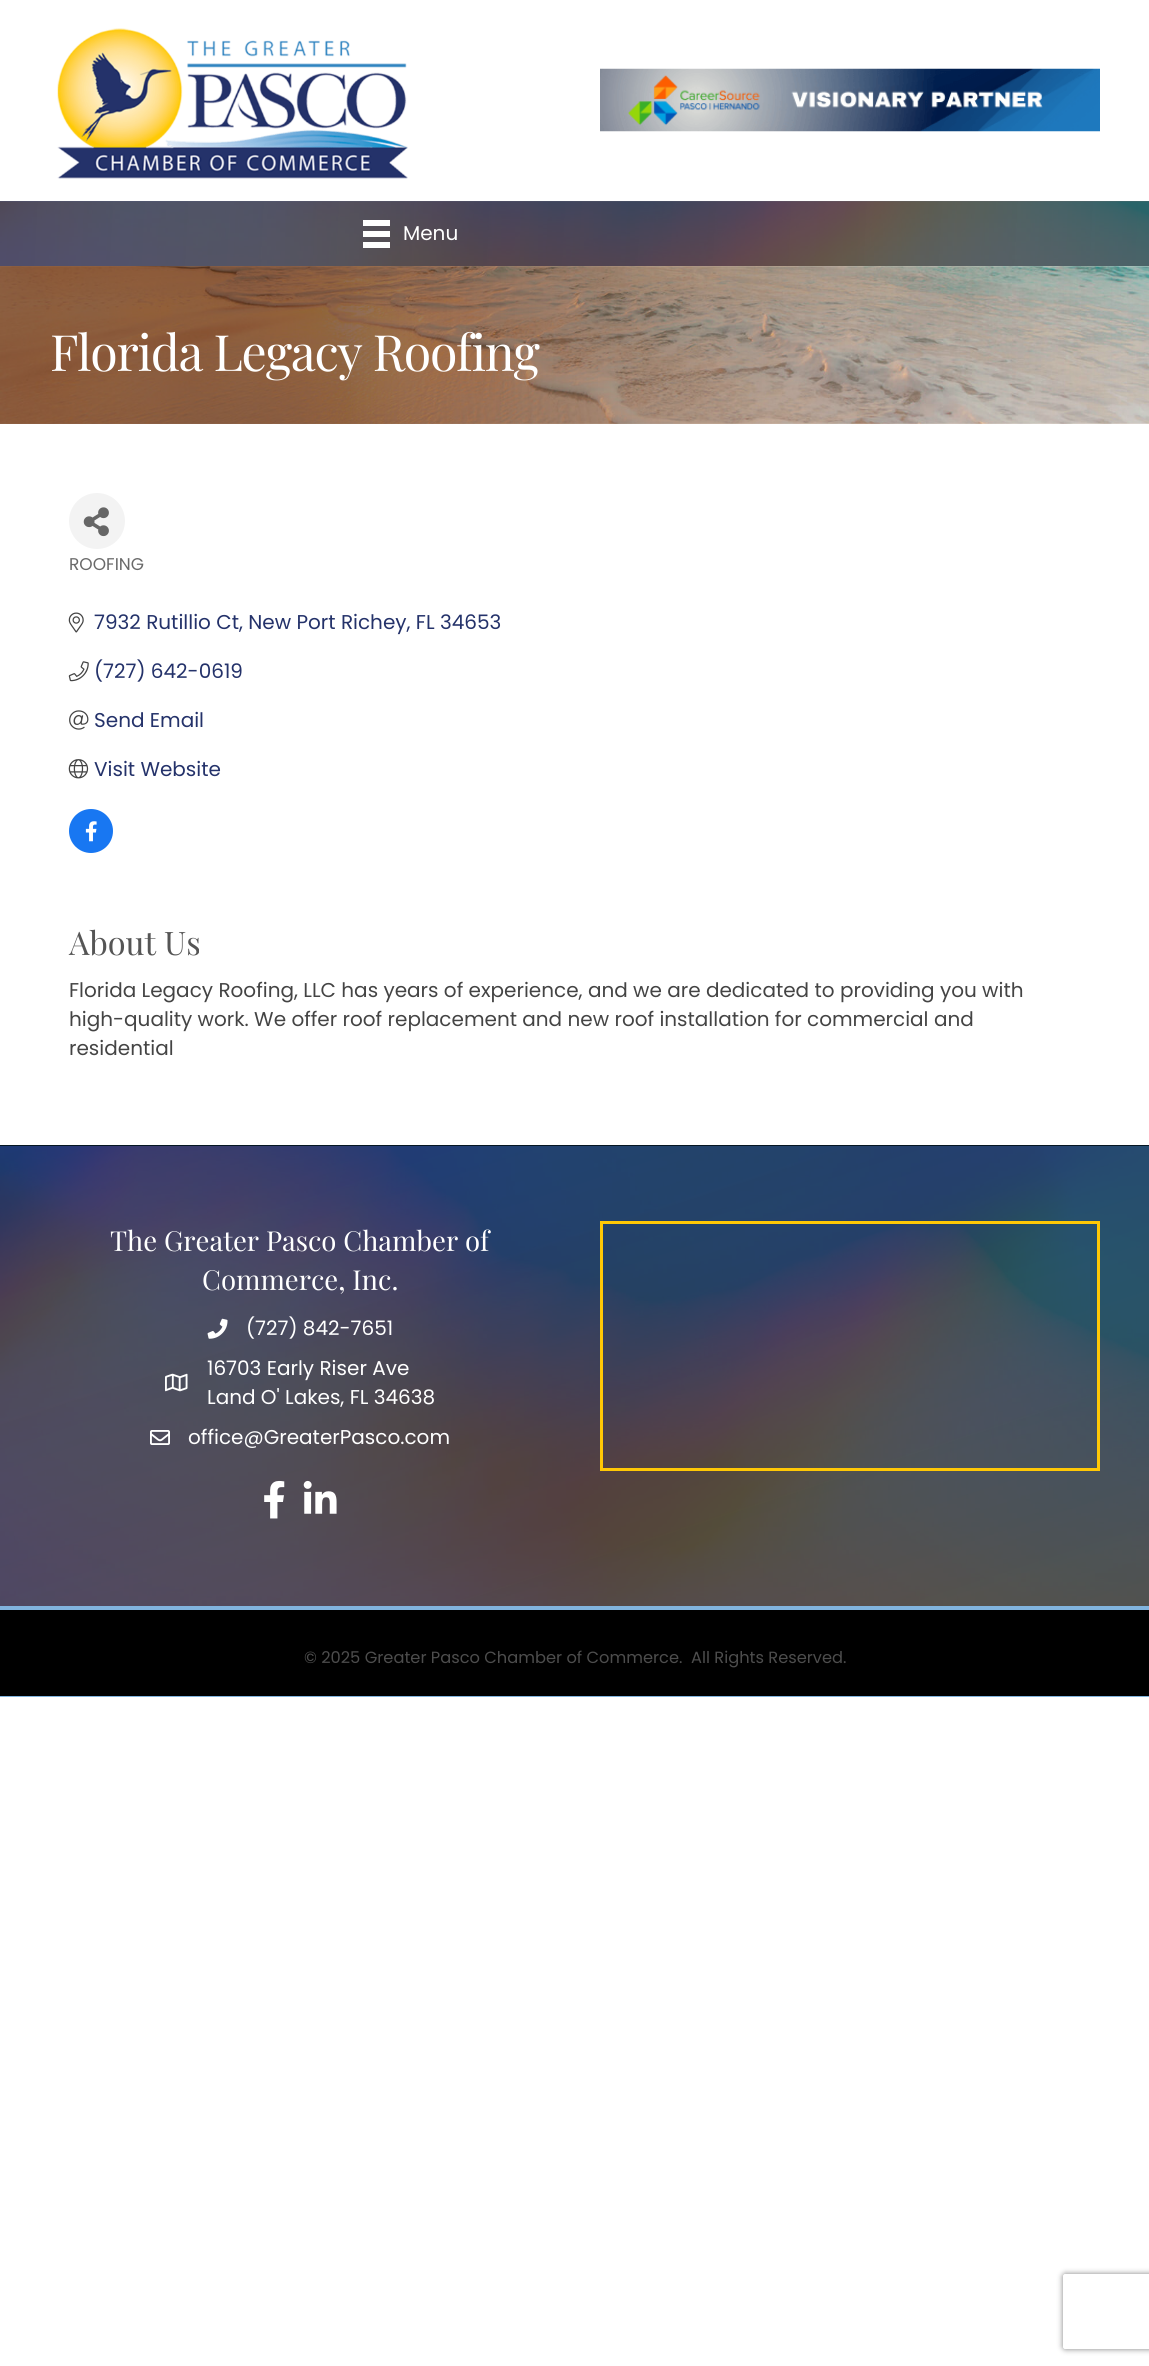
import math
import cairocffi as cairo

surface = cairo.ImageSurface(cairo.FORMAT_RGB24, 1149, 2366)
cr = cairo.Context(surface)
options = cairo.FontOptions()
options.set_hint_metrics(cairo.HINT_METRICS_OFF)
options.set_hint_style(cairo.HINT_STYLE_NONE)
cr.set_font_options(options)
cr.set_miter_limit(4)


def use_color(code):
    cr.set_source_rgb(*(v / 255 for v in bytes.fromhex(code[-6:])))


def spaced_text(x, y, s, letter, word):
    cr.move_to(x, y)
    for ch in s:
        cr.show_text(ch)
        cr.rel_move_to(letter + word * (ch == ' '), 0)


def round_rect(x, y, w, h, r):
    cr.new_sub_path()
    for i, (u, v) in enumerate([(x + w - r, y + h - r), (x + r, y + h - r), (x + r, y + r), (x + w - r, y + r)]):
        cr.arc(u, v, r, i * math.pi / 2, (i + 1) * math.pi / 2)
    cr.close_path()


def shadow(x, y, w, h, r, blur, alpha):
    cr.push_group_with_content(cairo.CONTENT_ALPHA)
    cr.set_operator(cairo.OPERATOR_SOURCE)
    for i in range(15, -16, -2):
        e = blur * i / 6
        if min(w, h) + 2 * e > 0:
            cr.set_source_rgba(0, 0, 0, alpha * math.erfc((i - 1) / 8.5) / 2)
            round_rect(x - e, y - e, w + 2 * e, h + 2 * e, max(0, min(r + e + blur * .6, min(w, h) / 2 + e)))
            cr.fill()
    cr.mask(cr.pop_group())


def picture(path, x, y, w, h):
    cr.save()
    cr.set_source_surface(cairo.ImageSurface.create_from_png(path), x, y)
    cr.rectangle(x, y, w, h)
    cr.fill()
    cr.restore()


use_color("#ffffff")
cr.paint()
picture("img1.png", 57, 28, 351, 151)
picture("img2.png", 600, 68, 500, 64)
picture("img3.png", 0, 201, 1149, 65)
gradient = cairo.LinearGradient(-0.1, 204, 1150, 264)
gradient.add_color_stop_rgba(0, 0.141, 0.196, 0.416, 0.8)
gradient.add_color_stop_rgba(1, 0.22, 0.22, 0.22, 0.74)
cr.set_source(gradient)
cr.rectangle(0, 201, 1149, 65)
cr.fill()
use_color("#ffffff")
cr.rectangle(363, 220, 27, 6)
cr.fill()
cr.rectangle(363, 231, 27, 6)
cr.fill()
cr.rectangle(363, 242, 27, 6)
cr.fill()
cr.select_font_face("Poppins")
cr.set_font_size(20)
cr.move_to(403, 240)
cr.show_text("Menu")
picture("img4.png", 0, 266, 1149, 158)
gradient = cairo.LinearGradient(0, 345, 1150, 345)
gradient.add_color_stop_rgba(0.3, 0.369, 0.145, 0, 0.66)
gradient.add_color_stop_rgba(1, 0.871, 0.725, 0.573, 0.2)
cr.set_source(gradient)
cr.rectangle(0, 266, 1149, 158)
cr.fill()
cr.select_font_face("Playfair Display")
cr.set_font_size(50)
use_color("#ffffff")
spaced_text(50, 371, "Florida Legacy Roofing", -1.25, 0)
use_color("#f3f3f3")
cr.new_path()
cr.arc(97, 521, 28, 0, 2 * math.pi)
cr.fill()
picture("img5.png", 83, 507, 26, 30)
cr.select_font_face("Poppins")
cr.set_font_size(17)
use_color("#696969")
cr.move_to(69, 570)
cr.show_text("ROOFING")
picture("img6.png", 68, 612, 16, 21)
cr.set_font_size(20)
use_color("#24326a")
cr.move_to(94, 629)
cr.show_text("7932 Rutillio Ct, New Port Richey, FL 34653")
picture("img7.png", 68, 661, 21, 21)
cr.move_to(94, 678)
cr.show_text("(727) 642-0619")
picture("img8.png", 69, 710, 20, 20)
cr.move_to(94, 727)
cr.show_text("Send Email")
picture("img9.png", 68, 759, 21, 20)
cr.move_to(94, 776)
cr.show_text("Visit Website")
use_color("#1877f2")
cr.new_path()
cr.arc(91, 831, 22, 0, 2 * math.pi)
cr.fill()
picture("img10.png", 85, 821, 12, 21)
cr.select_font_face("Playfair Display")
cr.set_font_size(32.5)
use_color("#555555")
cr.move_to(69, 955)
cr.show_text("About Us")
cr.select_font_face("Poppins")
cr.set_font_size(20)
use_color("#444444")
cr.move_to(69, 997)
cr.show_text("Florida Legacy Roofing, LLC has years of experience, and we are dedicated to providing you with")
cr.move_to(69, 1026)
cr.show_text("high-quality work. We offer roof replacement and new roof installation for commercial and")
cr.move_to(69, 1055)
cr.show_text("residential")
picture("img11.png", 0, 1146, 1149, 460)
use_color("#051622")
cr.rectangle(0, 1145, 1149, 1)
cr.fill()
cr.select_font_face("Playfair Display")
cr.set_font_size(27.5)
use_color("#ffffff")
cr.move_to(110, 1251)
cr.show_text("The Greater Pasco Chamber of")
cr.move_to(202, 1290)
cr.show_text("Commerce, Inc.")
picture("img12.png", 207, 1318, 21, 21)
cr.select_font_face("Poppins")
cr.set_font_size(20)
cr.move_to(246, 1335)
cr.show_text("(727) 842-7651")
picture("img13.png", 165, 1373, 23, 19)
cr.move_to(207, 1375)
cr.show_text("16703 Early Riser Ave")
cr.move_to(207, 1404)
cr.show_text("Land O' Lakes, FL 34638")
picture("img14.png", 150, 1430, 20, 15)
cr.move_to(188, 1444)
cr.show_text("office@GreaterPasco.com")
picture("img15.png", 264, 1480, 21, 39)
picture("img16.png", 303, 1480, 34, 34)
cr.rectangle(601.5, 1222.5, 497, 247)
use_color("#ffc805")
cr.set_line_width(3)
cr.stroke()
use_color("#000000")
cr.rectangle(0, 1610, 1149, 86)
cr.fill()
use_color("#81b4de")
cr.rectangle(0, 1606, 1149, 4)
cr.fill()
cr.rectangle(0, 1696, 1149, 1)
cr.fill()
cr.set_font_size(16.25)
use_color("#4d4d4d")
cr.move_to(304, 1663)
cr.show_text("© 2025 Greater Pasco Chamber of Commerce.")
cr.move_to(691, 1663)
cr.show_text("All Rights Reserved.")
cr.save()
cr.set_fill_rule(cairo.FILL_RULE_EVEN_ODD)
cr.new_path()
cr.move_to(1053, 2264)
cr.line_to(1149, 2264)
cr.line_to(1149, 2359)
cr.line_to(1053, 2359)
cr.close_path()
cr.move_to(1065.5, 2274)
cr.line_to(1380.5, 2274)
cr.curve_to(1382, 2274, 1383, 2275, 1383, 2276.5)
cr.line_to(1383, 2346.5)
cr.curve_to(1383, 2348, 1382, 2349, 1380.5, 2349)
cr.line_to(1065.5, 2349)
cr.curve_to(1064, 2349, 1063, 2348, 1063, 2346.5)
cr.line_to(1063, 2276.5)
cr.curve_to(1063, 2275, 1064, 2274, 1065.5, 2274)
cr.close_path()
cr.clip()
use_color("#808080")
shadow(1063, 2274, 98, 75, 2.5, 3, 1)
cr.restore()
surface.write_to_png("result.png")
